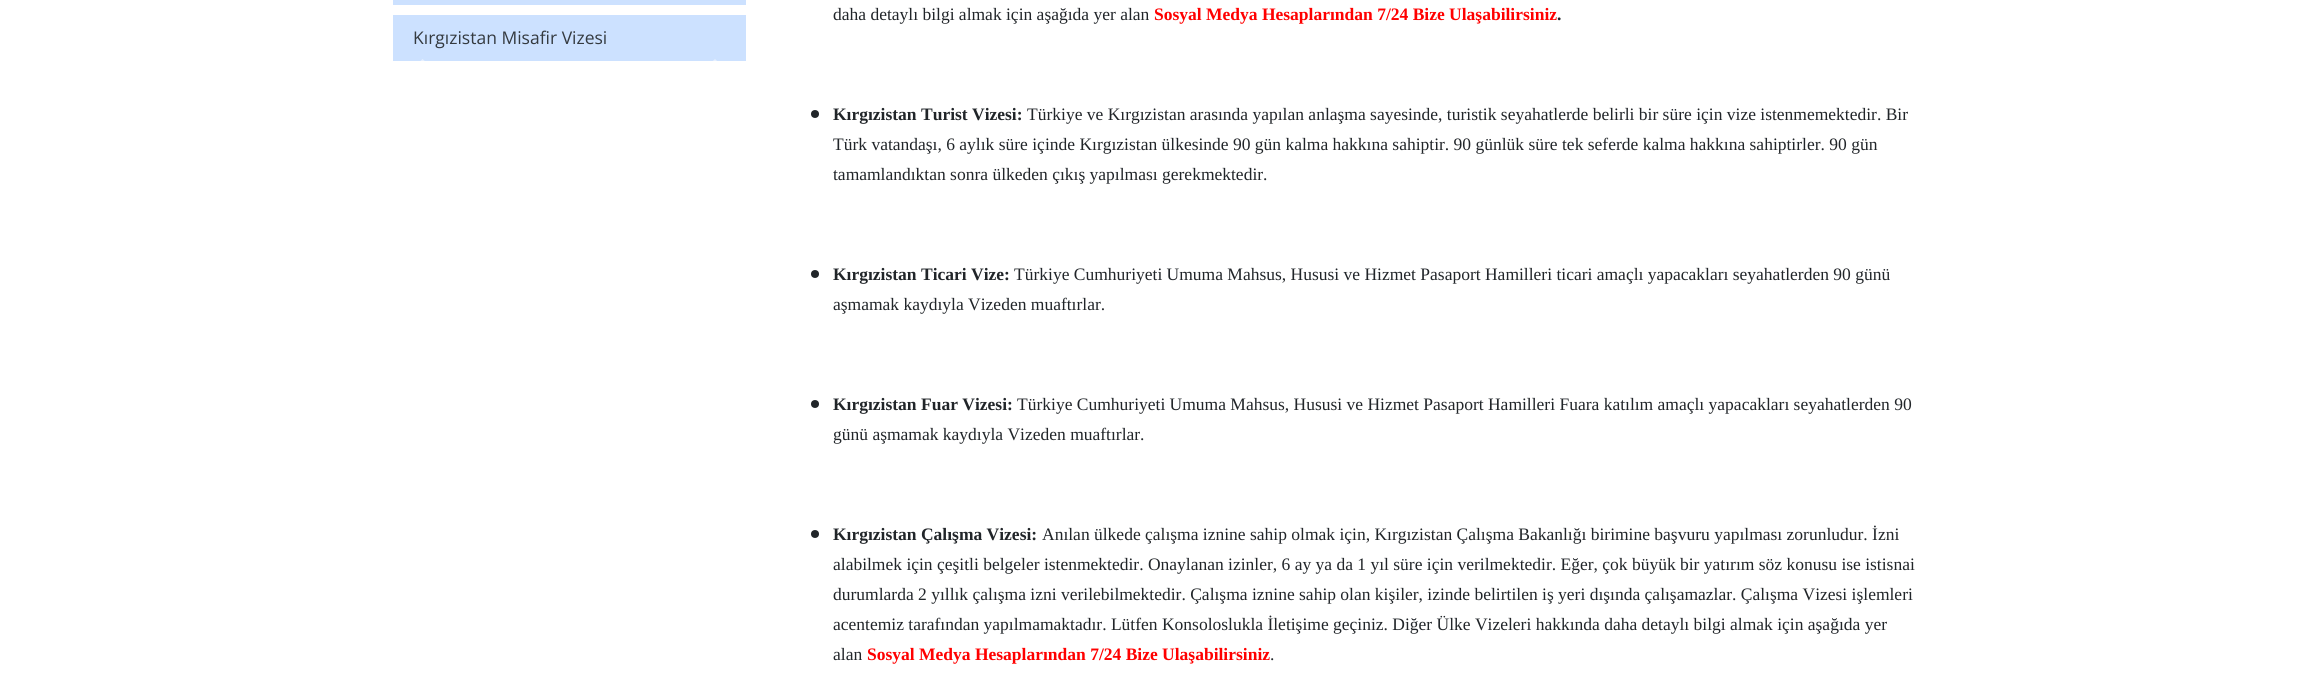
import math
import cairocffi as cairo

surface = cairo.ImageSurface(cairo.FORMAT_RGB24, 2310, 681)
cr = cairo.Context(surface)
options = cairo.FontOptions()
options.set_hint_metrics(cairo.HINT_METRICS_OFF)
options.set_hint_style(cairo.HINT_STYLE_NONE)
cr.set_font_options(options)
cr.set_miter_limit(4)


def use_color(code):
    cr.set_source_rgb(*(v / 255 for v in bytes.fromhex(code[-6:])))


use_color("#ffffff")
cr.paint()
use_color("#cce1ff")
cr.rectangle(393, 0, 353, 5)
cr.fill()
cr.rectangle(393, 15, 353, 46)
cr.fill()
cr.select_font_face("Open Sans")
cr.set_font_size(17.5)
use_color("#343a40")
cr.move_to(413, 44)
cr.show_text("Kırgızistan Misafir Vizesi")
cr.set_source_rgba(1, 1, 1, 0.5)
cr.new_path()
cr.move_to(422.5, 59)
cr.line_to(410, 71)
cr.line_to(422.5, 84)
cr.line_to(427.5, 79)
cr.line_to(419.5, 71)
cr.line_to(427.5, 63.5)
cr.close_path()
cr.fill()
cr.new_path()
cr.move_to(715, 59)
cr.line_to(710, 63.5)
cr.line_to(718, 71)
cr.line_to(710, 79)
cr.line_to(715, 84)
cr.line_to(727.5, 71)
cr.close_path()
cr.fill()
cr.select_font_face("Liberation Serif")
use_color("#212529")
cr.move_to(833, 20)
cr.show_text("daha detaylı bilgi almak için aşağıda yer alan")
cr.select_font_face("Liberation Serif", cairo.FONT_SLANT_NORMAL, cairo.FONT_WEIGHT_BOLD)
use_color("#ff0000")
cr.move_to(1154, 20)
cr.show_text("Sosyal Medya Hesaplarından 7/24 Bize Ulaşabilirsiniz")
use_color("#212529")
cr.move_to(1557, 20)
cr.show_text(".")
cr.new_path()
cr.arc(815, 114, 4, 0, 2 * math.pi)
cr.fill()
cr.move_to(833, 120)
cr.show_text("Kırgızistan Turist Vizesi:")
cr.select_font_face("Liberation Serif")
cr.move_to(1027, 120)
cr.show_text("Türkiye ve Kırgızistan arasında yapılan anlaşma sayesinde, turistik seyahatlerde belirli bir süre için vize istenmemektedir. Bir")
cr.move_to(833, 150)
cr.show_text("Türk vatandaşı, 6 aylık süre içinde Kırgızistan ülkesinde 90 gün kalma hakkına sahiptir. 90 günlük süre tek seferde kalma hakkına sahiptirler. 90 gün")
cr.move_to(833, 180)
cr.show_text("tamamlandıktan sonra ülkeden çıkış yapılması gerekmektedir.")
cr.new_path()
cr.arc(815, 274, 4, 0, 2 * math.pi)
cr.fill()
cr.select_font_face("Liberation Serif", cairo.FONT_SLANT_NORMAL, cairo.FONT_WEIGHT_BOLD)
cr.move_to(833, 280)
cr.show_text("Kırgızistan Ticari Vize:")
cr.select_font_face("Liberation Serif")
cr.move_to(1014, 280)
cr.show_text("Türkiye Cumhuriyeti Umuma Mahsus, Hususi ve Hizmet Pasaport Hamilleri ticari amaçlı yapacakları seyahatlerden 90 günü")
cr.move_to(833, 310)
cr.show_text("aşmamak kaydıyla Vizeden muaftırlar.")
cr.new_path()
cr.arc(815, 404, 4, 0, 2 * math.pi)
cr.fill()
cr.select_font_face("Liberation Serif", cairo.FONT_SLANT_NORMAL, cairo.FONT_WEIGHT_BOLD)
cr.move_to(833, 410)
cr.show_text("Kırgızistan Fuar Vizesi:")
cr.select_font_face("Liberation Serif")
cr.move_to(1017, 410)
cr.show_text("Türkiye Cumhuriyeti Umuma Mahsus, Hususi ve Hizmet Pasaport Hamilleri Fuara katılım amaçlı yapacakları seyahatlerden 90")
cr.move_to(833, 440)
cr.show_text("günü aşmamak kaydıyla Vizeden muaftırlar.")
cr.new_path()
cr.arc(815, 534, 4, 0, 2 * math.pi)
cr.fill()
cr.select_font_face("Liberation Serif", cairo.FONT_SLANT_NORMAL, cairo.FONT_WEIGHT_BOLD)
cr.move_to(833, 540)
cr.show_text("Kırgızistan Çalışma Vizesi:")
cr.select_font_face("Liberation Serif")
cr.move_to(1042, 540)
cr.show_text("Anılan ülkede çalışma iznine sahip olmak için, Kırgızistan Çalışma Bakanlığı birimine başvuru yapılması zorunludur. İzni")
cr.move_to(833, 570)
cr.show_text("alabilmek için çeşitli belgeler istenmektedir. Onaylanan izinler, 6 ay ya da 1 yıl süre için verilmektedir. Eğer, çok büyük bir yatırım söz konusu ise istisnai")
cr.move_to(833, 600)
cr.show_text("durumlarda 2 yıllık çalışma izni verilebilmektedir. Çalışma iznine sahip olan kişiler, izinde belirtilen iş yeri dışında çalışamazlar. Çalışma Vizesi işlemleri")
cr.move_to(833, 630)
cr.show_text("acentemiz tarafından yapılmamaktadır. Lütfen Konsoloslukla İletişime geçiniz. Diğer Ülke Vizeleri hakkında daha detaylı bilgi almak için aşağıda yer")
cr.move_to(833, 660)
cr.show_text("alan")
cr.select_font_face("Liberation Serif", cairo.FONT_SLANT_NORMAL, cairo.FONT_WEIGHT_BOLD)
use_color("#ff0000")
cr.move_to(867, 660)
cr.show_text("Sosyal Medya Hesaplarından 7/24 Bize Ulaşabilirsiniz")
cr.select_font_face("Liberation Serif")
use_color("#212529")
cr.move_to(1270, 660)
cr.show_text(".")
surface.write_to_png("result.png")
